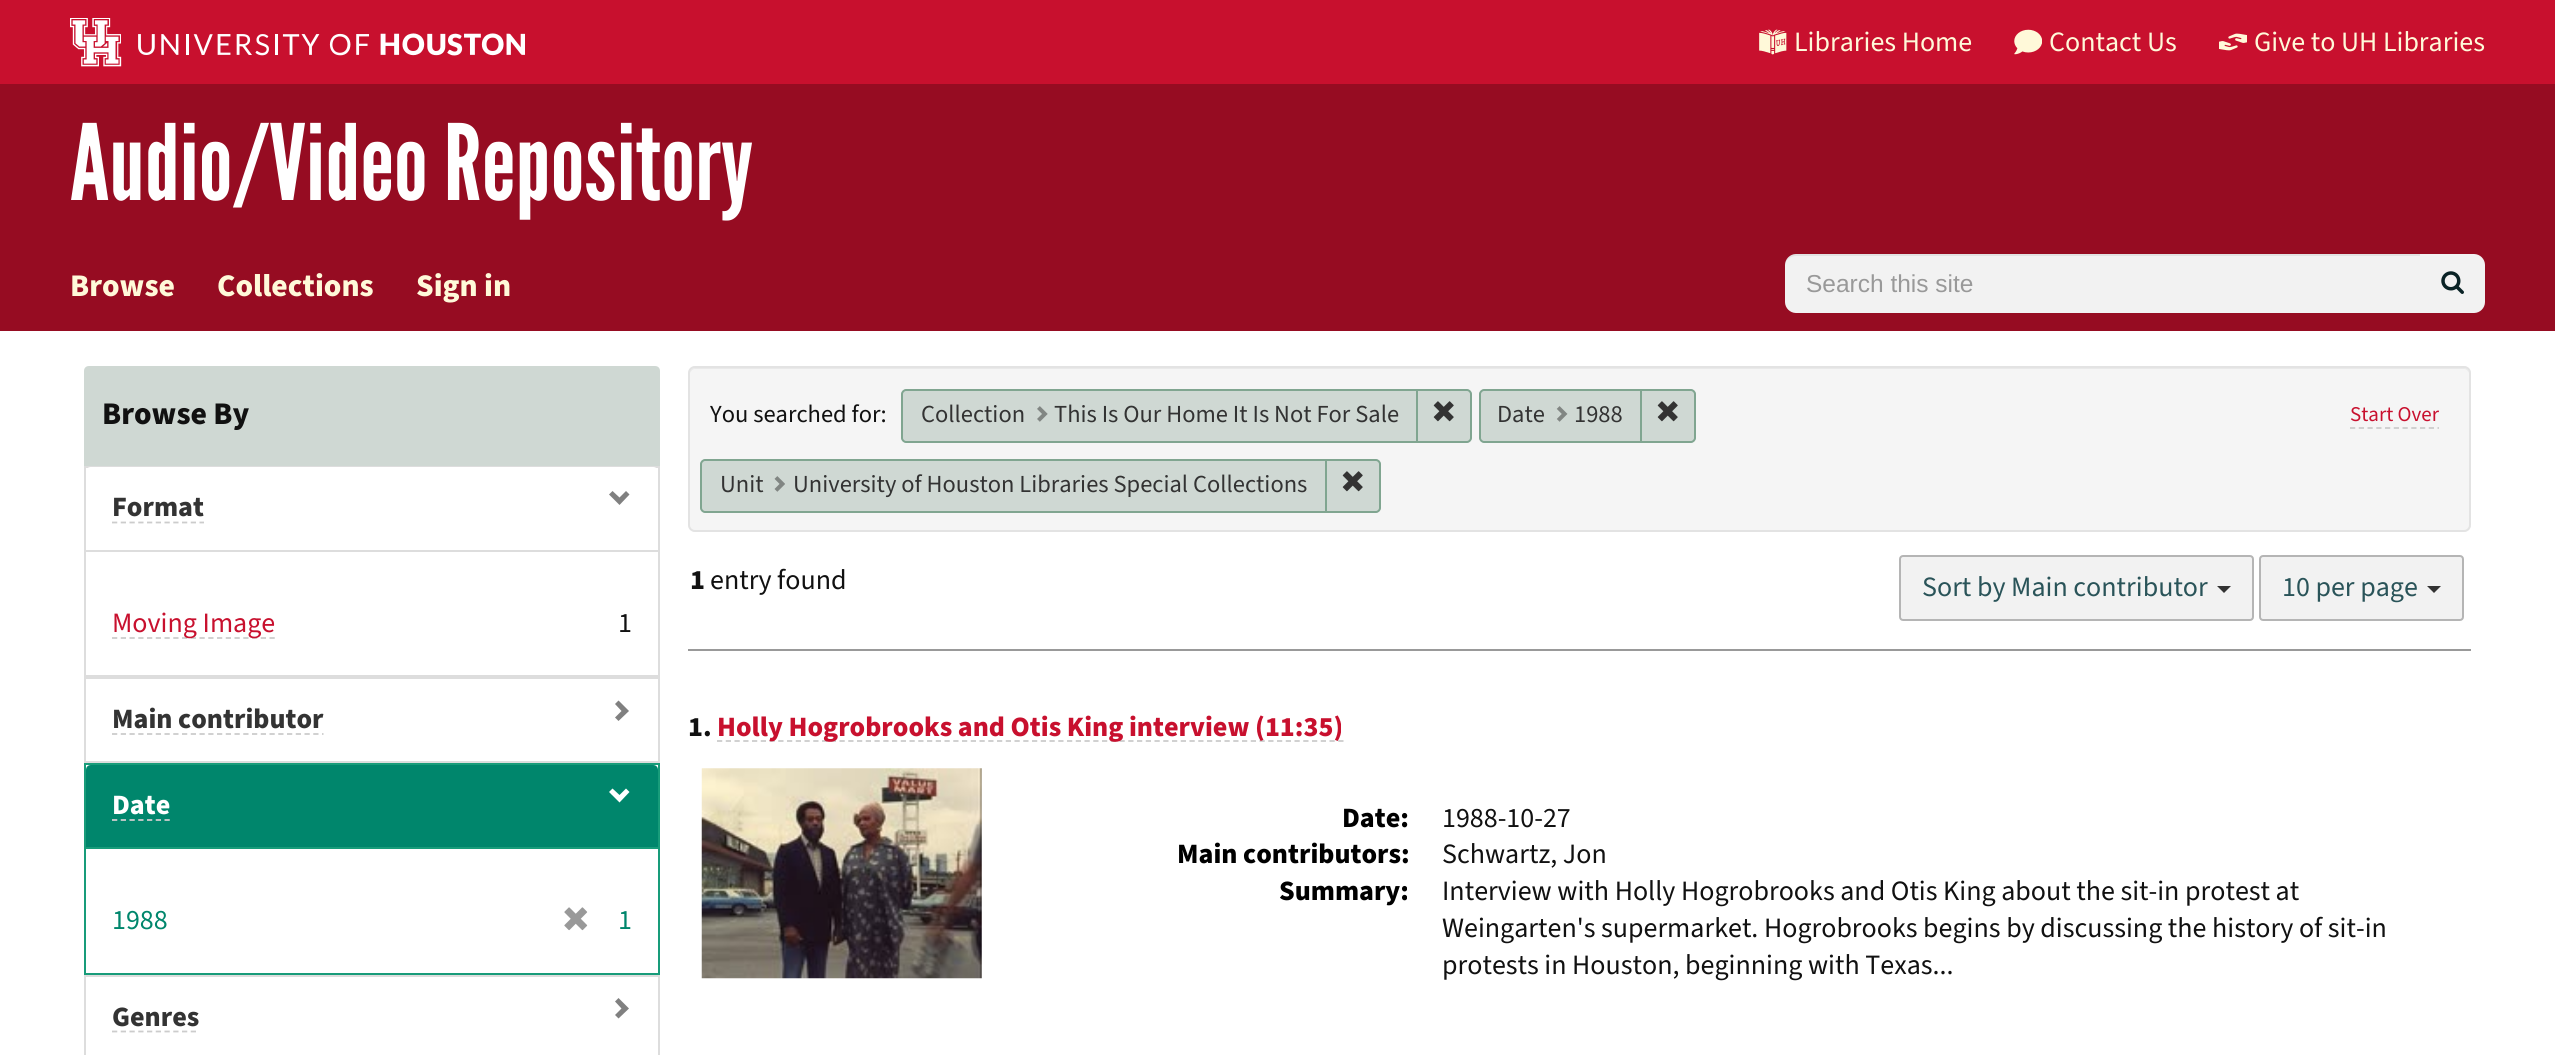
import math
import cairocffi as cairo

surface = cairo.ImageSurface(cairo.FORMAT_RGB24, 2555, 1055)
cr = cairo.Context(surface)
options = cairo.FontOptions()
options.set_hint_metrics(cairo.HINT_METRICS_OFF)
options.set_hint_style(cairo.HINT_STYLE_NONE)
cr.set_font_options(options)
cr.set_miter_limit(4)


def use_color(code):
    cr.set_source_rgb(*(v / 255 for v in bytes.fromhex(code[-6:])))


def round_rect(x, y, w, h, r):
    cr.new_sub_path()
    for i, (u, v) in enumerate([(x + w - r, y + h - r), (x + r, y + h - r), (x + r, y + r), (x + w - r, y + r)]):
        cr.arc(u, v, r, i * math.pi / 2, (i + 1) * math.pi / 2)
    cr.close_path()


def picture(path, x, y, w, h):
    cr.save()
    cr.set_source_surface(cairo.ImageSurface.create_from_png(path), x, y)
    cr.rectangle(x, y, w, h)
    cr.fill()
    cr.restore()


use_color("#ffffff")
cr.paint()
use_color("#c8102e")
cr.rectangle(0, 0, 2555, 84)
cr.fill()
picture("img1.png", 70, 18, 455, 49)
picture("img2.png", 1759, 29, 28, 26)
cr.select_font_face("Source Sans 3")
cr.set_font_size(28)
use_color("#fff9d9")
cr.move_to(1794, 51)
cr.show_text("Libraries Home")
picture("img3.png", 2014, 29, 28, 26)
cr.move_to(2049, 51)
cr.show_text("Contact Us")
picture("img4.png", 2219, 33, 28, 18)
cr.move_to(2254, 51)
cr.show_text("Give to UH Libraries")
use_color("#960c22")
cr.rectangle(0, 84, 2555, 247)
cr.fill()
cr.select_font_face("League Gothic")
cr.set_font_size(105)
use_color("#ffffff")
cr.move_to(70, 200)
cr.show_text("Audio/Video Repository")
cr.select_font_face("Source Sans 3 ExtraBold")
cr.set_font_size(31.5)
use_color("#fff9d9")
cr.move_to(70, 296)
cr.show_text("Browse")
cr.move_to(217, 296)
cr.show_text("Collections")
cr.move_to(416, 296)
cr.show_text("Sign in")
use_color("#f2f2f2")
cr.new_path()
cr.move_to(1796, 254)
cr.line_to(2422, 254)
cr.line_to(2422, 313)
cr.line_to(1796, 313)
cr.curve_to(1790, 313, 1785, 308, 1785, 302)
cr.line_to(1785, 265)
cr.curve_to(1785, 259, 1790, 254, 1796, 254)
cr.close_path()
cr.fill()
cr.set_source_rgba(0, 0, 0, 0.07)
cr.new_path()
cr.move_to(1796, 256)
cr.line_to(2422, 256)
cr.line_to(2422, 254)
cr.line_to(1796, 254)
cr.curve_to(1790, 254, 1785, 259, 1785, 265)
cr.line_to(1785, 266)
cr.curve_to(1785, 260, 1790, 256, 1796, 256)
cr.close_path()
cr.fill()
cr.select_font_face("Liberation Sans")
cr.set_font_size(24.5)
use_color("#999999")
cr.move_to(1806, 292)
cr.show_text("Search this site")
use_color("#f2f2f2")
cr.new_path()
cr.move_to(2420, 254)
cr.line_to(2474, 254)
cr.curve_to(2480, 254, 2485, 259, 2485, 265)
cr.line_to(2485, 302)
cr.curve_to(2485, 308, 2480, 313, 2474, 313)
cr.line_to(2420, 313)
cr.close_path()
cr.fill()
picture("img5.png", 2441, 271, 23, 23)
use_color("#cfd8d3")
cr.new_path()
cr.move_to(89, 366)
cr.line_to(655, 366)
cr.curve_to(658, 366, 660, 368, 660, 371)
cr.line_to(660, 466)
cr.line_to(84, 466)
cr.line_to(84, 371)
cr.curve_to(84, 368, 86, 366, 89, 366)
cr.close_path()
cr.fill()
cr.select_font_face("Source Sans 3 ExtraBold")
cr.set_font_size(31.5)
use_color("#111111")
cr.move_to(102, 424)
cr.show_text("Browse By")
cr.rectangle(85, 467, 574, 209)
use_color("#dddddd")
cr.stroke()
use_color("#ffffff")
cr.new_path()
cr.move_to(91, 467)
cr.line_to(653, 467)
cr.curve_to(656, 467, 658, 469, 658, 472)
cr.line_to(658, 550)
cr.line_to(86, 550)
cr.line_to(86, 472)
cr.curve_to(86, 469, 88, 467, 91, 467)
cr.close_path()
cr.fill()
cr.set_font_size(28)
use_color("#333333")
cr.move_to(112, 516)
cr.show_text("Format")
cr.new_path()
cr.move_to(112, 522.5)
cr.line_to(204, 522.5)
use_color("#cccccc")
cr.set_line_width(1.8)
cr.set_dash([5.25, 3.5])
cr.stroke()
use_color("#808080")
cr.new_path()
cr.move_to(629.5, 494.5)
cr.line_to(619.5, 505)
cr.line_to(609, 494.5)
cr.line_to(612.5, 491)
cr.line_to(619.5, 497.5)
cr.line_to(626, 491)
cr.close_path()
cr.fill()
use_color("#dddddd")
cr.rectangle(86, 550, 572, 2)
cr.fill()
cr.new_path()
cr.move_to(112, 638)
cr.line_to(275, 638)
use_color("#cccccc")
cr.stroke()
cr.select_font_face("Source Sans 3")
use_color("#c8102e")
cr.move_to(112, 632)
cr.show_text("Moving Image")
use_color("#111111")
cr.move_to(618, 632)
cr.show_text("1")
cr.rectangle(85, 678, 574, 84)
use_color("#dddddd")
cr.set_line_width(2)
cr.set_dash([])
cr.stroke()
cr.select_font_face("Source Sans 3 ExtraBold")
use_color("#333333")
cr.move_to(112, 728)
cr.show_text("Main contributor")
cr.new_path()
cr.move_to(112, 734)
cr.line_to(323.5, 734)
use_color("#cccccc")
cr.set_line_width(1.8)
cr.set_dash([5.25, 3.5])
cr.stroke()
use_color("#808080")
cr.new_path()
cr.move_to(629, 711)
cr.line_to(618.5, 721)
cr.line_to(615, 717.5)
cr.line_to(621.5, 711)
cr.line_to(615, 704)
cr.line_to(618.5, 700.5)
cr.close_path()
cr.fill()
cr.rectangle(85, 764, 574, 210)
use_color("#189c7a")
cr.set_line_width(2)
cr.set_dash([])
cr.stroke()
use_color("#00866c")
cr.new_path()
cr.move_to(91, 765)
cr.line_to(653, 765)
cr.curve_to(656, 765, 658, 767, 658, 770)
cr.line_to(658, 847)
cr.line_to(86, 847)
cr.line_to(86, 770)
cr.curve_to(86, 767, 88, 765, 91, 765)
cr.close_path()
cr.fill()
use_color("#ffffff")
cr.move_to(112, 814)
cr.show_text("Date")
cr.new_path()
cr.move_to(112, 820)
cr.line_to(170.5, 820)
use_color("#cccccc")
cr.set_line_width(1.8)
cr.set_dash([5.25, 3.5])
cr.stroke()
use_color("#ffffff")
cr.new_path()
cr.move_to(629.5, 792)
cr.line_to(619.5, 802.5)
cr.line_to(609, 792)
cr.line_to(612.5, 788.5)
cr.line_to(619.5, 795)
cr.line_to(626, 788.5)
cr.close_path()
cr.fill()
use_color("#189c7a")
cr.rectangle(86, 847, 572, 2)
cr.fill()
cr.select_font_face("Source Sans 3")
use_color("#00866c")
cr.move_to(112, 929)
cr.show_text("1988")
picture("img6.png", 564, 907, 24, 24)
cr.move_to(618, 929)
cr.show_text("1")
cr.rectangle(85, 976, 574, 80)
use_color("#dddddd")
cr.set_line_width(2)
cr.set_dash([])
cr.stroke()
cr.select_font_face("Source Sans 3 ExtraBold")
use_color("#333333")
cr.move_to(112, 1026)
cr.show_text("Genres")
cr.new_path()
cr.move_to(112, 1031.5)
cr.line_to(199.5, 1031.5)
use_color("#cccccc")
cr.set_line_width(1.8)
cr.set_dash([5.25, 3.5])
cr.stroke()
use_color("#808080")
cr.new_path()
cr.move_to(629, 1008.5)
cr.line_to(618.5, 1018.5)
cr.line_to(615, 1015)
cr.line_to(621.5, 1008.5)
cr.line_to(615, 1001.5)
cr.line_to(618.5, 998)
cr.close_path()
cr.fill()
use_color("#f5f5f5")
round_rect(688, 366, 1783, 166, 7)
cr.fill()
use_color("#e9e9e9")
cr.new_path()
cr.move_to(695, 369)
cr.line_to(2464, 369)
cr.curve_to(2467, 369, 2469, 372, 2469, 374)
cr.line_to(2469, 373)
cr.curve_to(2469, 370, 2467, 368, 2464, 368)
cr.line_to(695, 368)
cr.curve_to(692, 368, 690, 370, 690, 373)
cr.line_to(690, 374)
cr.curve_to(690, 372, 692, 369, 695, 369)
cr.close_path()
cr.fill()
round_rect(689, 367, 1781, 164, 6)
use_color("#e3e3e3")
cr.set_line_width(2)
cr.set_dash([])
cr.stroke()
cr.select_font_face("Source Sans 3")
cr.set_font_size(24.5)
use_color("#111111")
cr.move_to(710, 422)
cr.show_text("You searched for:")
use_color("#cfd8d3")
cr.new_path()
cr.move_to(906, 390)
cr.line_to(1417, 390)
cr.line_to(1417, 442)
cr.line_to(906, 442)
cr.curve_to(904, 442, 902, 440, 902, 438)
cr.line_to(902, 394)
cr.curve_to(902, 392, 904, 390, 906, 390)
cr.close_path()
cr.fill_preserve()
use_color("#80a590")
cr.stroke()
use_color("#333333")
cr.move_to(921, 422)
cr.show_text("Collection")
picture("img7.png", 1037, 406, 11, 16)
cr.move_to(1054, 422)
cr.show_text("This Is Our Home It Is Not For Sale")
use_color("#cfd8d3")
cr.new_path()
cr.move_to(1417, 390)
cr.line_to(1467, 390)
cr.curve_to(1469, 390, 1471, 392, 1471, 394)
cr.line_to(1471, 438)
cr.curve_to(1471, 440, 1469, 442, 1467, 442)
cr.line_to(1417, 442)
cr.close_path()
cr.fill_preserve()
use_color("#80a590")
cr.stroke()
picture("img8.png", 1433, 401, 21, 21)
use_color("#cfd8d3")
cr.new_path()
cr.move_to(1484, 390)
cr.line_to(1641, 390)
cr.line_to(1641, 442)
cr.line_to(1484, 442)
cr.curve_to(1482, 442, 1480, 440, 1480, 438)
cr.line_to(1480, 394)
cr.curve_to(1480, 392, 1482, 390, 1484, 390)
cr.close_path()
cr.fill_preserve()
use_color("#80a590")
cr.stroke()
use_color("#333333")
cr.move_to(1497, 422)
cr.show_text("Date")
picture("img9.png", 1556, 406, 12, 16)
cr.move_to(1574, 422)
cr.show_text("1988")
use_color("#cfd8d3")
cr.new_path()
cr.move_to(1641, 390)
cr.line_to(1691, 390)
cr.curve_to(1693, 390, 1695, 392, 1695, 394)
cr.line_to(1695, 438)
cr.curve_to(1695, 440, 1693, 442, 1691, 442)
cr.line_to(1641, 442)
cr.close_path()
cr.fill_preserve()
use_color("#80a590")
cr.stroke()
picture("img8.png", 1657, 401, 21, 21)
cr.set_font_size(21)
use_color("#c8102e")
cr.move_to(2350, 421)
cr.show_text("Start Over")
cr.new_path()
cr.move_to(2350, 428)
cr.line_to(2439, 428)
use_color("#cccccc")
cr.set_line_width(1.8)
cr.set_dash([5.25, 3.5])
cr.stroke()
use_color("#cfd8d3")
cr.new_path()
cr.move_to(705, 460)
cr.line_to(1326, 460)
cr.line_to(1326, 512)
cr.line_to(705, 512)
cr.curve_to(703, 512, 701, 510, 701, 508)
cr.line_to(701, 464)
cr.curve_to(701, 462, 703, 460, 705, 460)
cr.close_path()
cr.fill_preserve()
use_color("#80a590")
cr.set_line_width(2)
cr.set_dash([])
cr.stroke()
cr.set_font_size(24.5)
use_color("#333333")
cr.move_to(720, 492)
cr.show_text("Unit")
picture("img10.png", 774, 476, 11, 16)
cr.move_to(793, 492)
cr.show_text("University of Houston Libraries Special Collections")
use_color("#cfd8d3")
cr.new_path()
cr.move_to(1326, 460)
cr.line_to(1376, 460)
cr.curve_to(1378, 460, 1380, 462, 1380, 464)
cr.line_to(1380, 508)
cr.curve_to(1380, 510, 1378, 512, 1376, 512)
cr.line_to(1326, 512)
cr.close_path()
cr.fill_preserve()
use_color("#80a590")
cr.stroke()
picture("img8.png", 1342, 471, 21, 21)
use_color("#999999")
cr.rectangle(688, 649, 1783, 2)
cr.fill()
cr.select_font_face("Source Sans 3 ExtraBold")
cr.set_font_size(28)
use_color("#111111")
cr.move_to(690, 589)
cr.show_text("1")
cr.select_font_face("Source Sans 3")
cr.move_to(710, 589)
cr.show_text("entry found")
use_color("#f2f2f2")
round_rect(1900, 556, 353, 64, 3)
cr.fill_preserve()
use_color("#b5b5b5")
cr.stroke()
use_color("#2a5459")
cr.move_to(1922, 596)
cr.show_text("Sort by Main contributor")
use_color("#333333")
cr.new_path()
cr.move_to(2217, 586)
cr.line_to(2231, 586)
cr.line_to(2224, 593)
cr.close_path()
cr.fill()
use_color("#f2f2f2")
round_rect(2260, 556, 203, 64, 3)
cr.fill_preserve()
use_color("#b5b5b5")
cr.stroke()
use_color("#2a5459")
cr.move_to(2282, 596)
cr.show_text("10 per page")
use_color("#333333")
cr.new_path()
cr.move_to(2427, 586)
cr.line_to(2441, 586)
cr.line_to(2434, 593)
cr.close_path()
cr.fill()
cr.select_font_face("Source Sans 3 ExtraBold")
use_color("#111111")
cr.move_to(688, 736)
cr.show_text("1.")
cr.new_path()
cr.move_to(717, 741)
cr.line_to(1343.5, 741)
use_color("#cccccc")
cr.set_line_width(1.8)
cr.set_dash([5.25, 3.5])
cr.stroke()
use_color("#c8102e")
cr.move_to(717, 736)
cr.show_text("Holly Hogrobrooks and Otis King interview (11:35)")
picture("img11.png", 701, 768, 281, 211)
use_color("#000000")
cr.move_to(1342, 827)
cr.show_text("Date:")
cr.select_font_face("Source Sans 3")
use_color("#111111")
cr.move_to(1442, 827)
cr.show_text("1988-10-27")
cr.select_font_face("Source Sans 3 ExtraBold")
use_color("#000000")
cr.move_to(1177, 863)
cr.show_text("Main contributors:")
cr.select_font_face("Source Sans 3")
use_color("#111111")
cr.move_to(1442, 863)
cr.show_text("Schwartz, Jon")
cr.select_font_face("Source Sans 3 ExtraBold")
use_color("#000000")
cr.move_to(1279, 900)
cr.show_text("Summary:")
cr.select_font_face("Source Sans 3")
use_color("#111111")
cr.move_to(1442, 900)
cr.show_text("Interview with Holly Hogrobrooks and Otis King about the sit-in protest at")
cr.move_to(1442, 937)
cr.show_text("Weingarten's supermarket. Hogrobrooks begins by discussing the history of sit-in")
cr.move_to(1442, 974)
cr.show_text("protests in Houston, beginning with Texas...")
surface.write_to_png("result.png")
